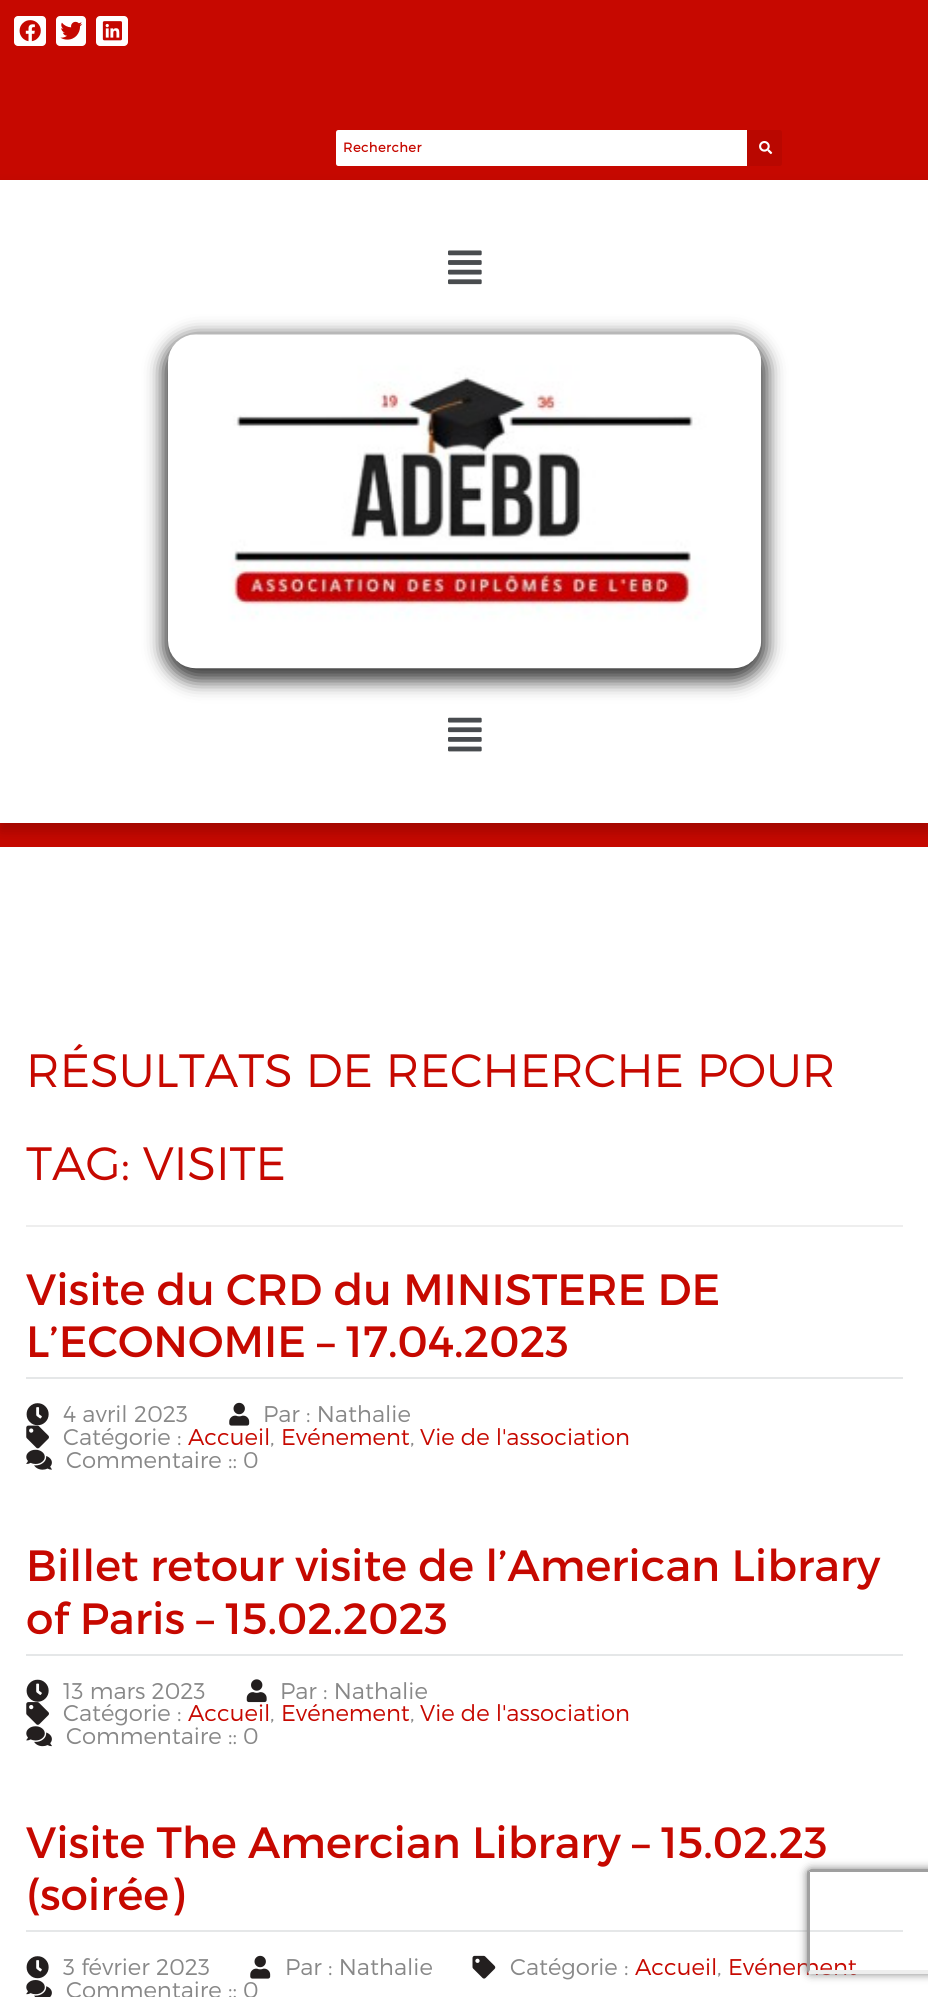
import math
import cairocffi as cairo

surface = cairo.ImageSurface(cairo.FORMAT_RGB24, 928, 1997)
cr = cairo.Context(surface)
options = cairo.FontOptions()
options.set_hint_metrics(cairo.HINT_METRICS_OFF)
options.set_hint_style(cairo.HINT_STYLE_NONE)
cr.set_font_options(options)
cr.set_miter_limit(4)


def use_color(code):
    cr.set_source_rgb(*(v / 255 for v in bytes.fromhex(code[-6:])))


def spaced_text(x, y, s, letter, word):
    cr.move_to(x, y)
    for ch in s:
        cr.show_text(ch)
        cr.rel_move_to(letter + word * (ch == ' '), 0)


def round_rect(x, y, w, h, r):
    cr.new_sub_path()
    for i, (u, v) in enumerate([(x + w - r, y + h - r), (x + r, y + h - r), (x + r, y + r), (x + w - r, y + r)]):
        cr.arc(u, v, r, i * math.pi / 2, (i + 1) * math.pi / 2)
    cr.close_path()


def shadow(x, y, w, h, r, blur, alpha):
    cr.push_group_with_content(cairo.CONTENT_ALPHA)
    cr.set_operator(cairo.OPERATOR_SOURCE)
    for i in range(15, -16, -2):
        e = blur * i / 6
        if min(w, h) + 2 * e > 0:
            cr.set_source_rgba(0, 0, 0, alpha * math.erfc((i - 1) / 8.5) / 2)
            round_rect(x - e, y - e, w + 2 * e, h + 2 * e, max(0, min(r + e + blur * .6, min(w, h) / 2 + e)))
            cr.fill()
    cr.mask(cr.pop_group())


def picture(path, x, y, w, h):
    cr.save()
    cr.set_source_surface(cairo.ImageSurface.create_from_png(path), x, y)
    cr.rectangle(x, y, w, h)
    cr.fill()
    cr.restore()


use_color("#c60800")
cr.paint()
use_color("#ffffff")
round_rect(14, 16, 32, 30, 4)
cr.fill()
picture("img1.png", 19, 20, 22, 22)
round_rect(56, 16, 30, 30, 4)
cr.fill()
picture("img2.png", 60, 21, 23, 19)
round_rect(96, 16, 32, 30, 4)
cr.fill()
picture("img3.png", 102, 21, 20, 20)
cr.new_path()
cr.move_to(338.5, 130)
cr.line_to(747, 130)
cr.line_to(747, 166)
cr.line_to(338.5, 166)
cr.curve_to(337, 166, 336, 165, 336, 163.5)
cr.line_to(336, 132.5)
cr.curve_to(336, 131, 337, 130, 338.5, 130)
cr.close_path()
cr.fill()
cr.select_font_face("Montserrat", cairo.FONT_SLANT_NORMAL, cairo.FONT_WEIGHT_BOLD)
cr.set_font_size(13)
use_color("#c60800")
spaced_text(343, 152, "Rechercher", 0.5, 0)
use_color("#b90700")
cr.new_path()
cr.move_to(747, 130)
cr.line_to(779.5, 130)
cr.curve_to(781, 130, 782, 131, 782, 132.5)
cr.line_to(782, 163.5)
cr.curve_to(782, 165, 781, 166, 779.5, 166)
cr.line_to(747, 166)
cr.close_path()
cr.fill()
picture("img4.png", 759, 141, 14, 14)
use_color("#ffffff")
cr.rectangle(0, 847, 928, 1150)
cr.fill()
use_color("#000000")
shadow(0, 189, 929, 642, 0, 7, 0.2)
use_color("#ffffff")
cr.rectangle(0, 180, 928, 643)
cr.fill()
picture("img5.png", 448, 250, 34, 35)
use_color("#000000")
shadow(163, 336, 604, 345, 33, 9, 0.76)
picture("img6.png", 168, 334, 594, 335)
picture("img7.png", 448, 717, 34, 35)
use_color("#eeeeee")
cr.rectangle(26, 1225, 877, 2)
cr.fill()
cr.select_font_face("Montserrat Light")
cr.set_font_size(46.7)
use_color("#c60800")
cr.move_to(26, 1087)
cr.show_text("RÉSULTATS DE RECHERCHE POUR")
cr.move_to(26, 1180)
cr.show_text("TAG: VISITE")
use_color("#e5e7e8")
cr.rectangle(26, 1377, 877, 2)
cr.fill()
cr.select_font_face("Montserrat")
cr.set_font_size(43.75)
use_color("#c60800")
cr.move_to(26, 1305)
cr.show_text("Visite du CRD du MINISTERE DE")
cr.move_to(26, 1357)
cr.show_text("L’ECONOMIE – 17.04.2023")
picture("img8.png", 26, 1403, 23, 23)
cr.select_font_face("Montserrat Light")
cr.set_font_size(22.75)
use_color("#888888")
cr.move_to(63, 1422)
cr.show_text("4 avril 2023")
picture("img9.png", 229, 1402, 21, 24)
cr.move_to(263, 1422)
cr.show_text("Par : Nathalie")
picture("img10.png", 26, 1425, 23, 24)
cr.move_to(63, 1445)
cr.show_text("Catégorie :")
use_color("#c60800")
cr.move_to(188, 1445)
cr.show_text("Accueil")
use_color("#888888")
cr.move_to(270, 1445)
cr.show_text(",")
use_color("#c60800")
cr.move_to(281, 1445)
cr.show_text("Evénement")
use_color("#888888")
cr.move_to(410, 1445)
cr.show_text(",")
use_color("#c60800")
cr.move_to(420, 1445)
cr.show_text("Vie de l'association")
picture("img11.png", 26, 1449, 26, 21)
use_color("#888888")
cr.move_to(66, 1468)
cr.show_text("Commentaire :: 0")
use_color("#e5e7e8")
cr.rectangle(26, 1654, 877, 2)
cr.fill()
cr.select_font_face("Montserrat")
cr.set_font_size(43.75)
use_color("#c60800")
cr.move_to(26, 1581)
cr.show_text("Billet retour visite de l’American Library")
cr.move_to(26, 1634)
cr.show_text("of Paris – 15.02.2023")
picture("img12.png", 26, 1679, 23, 23)
cr.select_font_face("Montserrat Light")
cr.set_font_size(22.75)
use_color("#888888")
cr.move_to(63, 1699)
cr.show_text("13 mars 2023")
picture("img13.png", 246, 1679, 21, 24)
cr.move_to(280, 1699)
cr.show_text("Par : Nathalie")
picture("img14.png", 26, 1702, 23, 23)
cr.move_to(63, 1721)
cr.show_text("Catégorie :")
use_color("#c60800")
cr.move_to(188, 1721)
cr.show_text("Accueil")
use_color("#888888")
cr.move_to(270, 1721)
cr.show_text(",")
use_color("#c60800")
cr.move_to(281, 1721)
cr.show_text("Evénement")
use_color("#888888")
cr.move_to(410, 1721)
cr.show_text(",")
use_color("#c60800")
cr.move_to(420, 1721)
cr.show_text("Vie de l'association")
picture("img15.png", 26, 1726, 26, 21)
use_color("#888888")
cr.move_to(66, 1744)
cr.show_text("Commentaire :: 0")
use_color("#e5e7e8")
cr.rectangle(26, 1930, 877, 2)
cr.fill()
cr.select_font_face("Montserrat")
cr.set_font_size(43.75)
use_color("#c60800")
cr.move_to(26, 1858)
cr.show_text("Visite The Amercian Library – 15.02.23")
cr.move_to(26, 1910)
cr.show_text("(soirée)")
picture("img8.png", 26, 1956, 23, 23)
cr.select_font_face("Montserrat Light")
cr.set_font_size(22.75)
use_color("#888888")
cr.move_to(63, 1975)
cr.show_text("3 février 2023")
picture("img9.png", 250, 1955, 21, 24)
cr.move_to(285, 1975)
cr.show_text("Par : Nathalie")
picture("img16.png", 472, 1955, 24, 24)
cr.move_to(510, 1975)
cr.show_text("Catégorie :")
use_color("#c60800")
cr.move_to(635, 1975)
cr.show_text("Accueil")
use_color("#888888")
cr.move_to(717, 1975)
cr.show_text(",")
use_color("#c60800")
cr.move_to(728, 1975)
cr.show_text("Evénement")
picture("img17.png", 26, 1980, 26, 17)
use_color("#888888")
cr.move_to(66, 1998)
cr.show_text("Commentaire :: 0")
cr.save()
cr.set_fill_rule(cairo.FILL_RULE_EVEN_ODD)
cr.new_path()
cr.move_to(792, 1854)
cr.line_to(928, 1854)
cr.line_to(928, 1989)
cr.line_to(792, 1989)
cr.close_path()
cr.move_to(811, 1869)
cr.line_to(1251, 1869)
cr.curve_to(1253, 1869, 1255, 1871, 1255, 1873)
cr.line_to(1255, 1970)
cr.curve_to(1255, 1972, 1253, 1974, 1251, 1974)
cr.line_to(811, 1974)
cr.curve_to(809, 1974, 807, 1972, 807, 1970)
cr.line_to(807, 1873)
cr.curve_to(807, 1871, 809, 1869, 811, 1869)
cr.close_path()
cr.clip()
use_color("#808080")
shadow(807, 1869, 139, 105, 4, 4.5, 1)
cr.restore()
use_color("#9f9f9f")
cr.new_path()
cr.move_to(811, 1869)
cr.line_to(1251, 1869)
cr.line_to(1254, 1870)
cr.line_to(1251, 1872)
cr.line_to(810, 1872)
cr.line_to(808, 1870)
cr.close_path()
cr.fill()
use_color("#eeeeee")
cr.new_path()
cr.move_to(811, 1974)
cr.line_to(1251, 1974)
cr.line_to(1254, 1973)
cr.line_to(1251, 1970)
cr.line_to(810, 1970)
cr.line_to(808, 1973)
cr.curve_to(809, 1973, 810, 1974, 811, 1974)
cr.close_path()
cr.fill()
use_color("#9f9f9f")
cr.new_path()
cr.move_to(808, 1870)
cr.line_to(810, 1872)
cr.line_to(810, 1970)
cr.line_to(808, 1973)
cr.curve_to(807, 1972, 807, 1971, 807, 1970)
cr.line_to(807, 1873)
cr.curve_to(807, 1872, 807, 1871, 808, 1870)
cr.close_path()
cr.fill()
surface.write_to_png("result.png")
